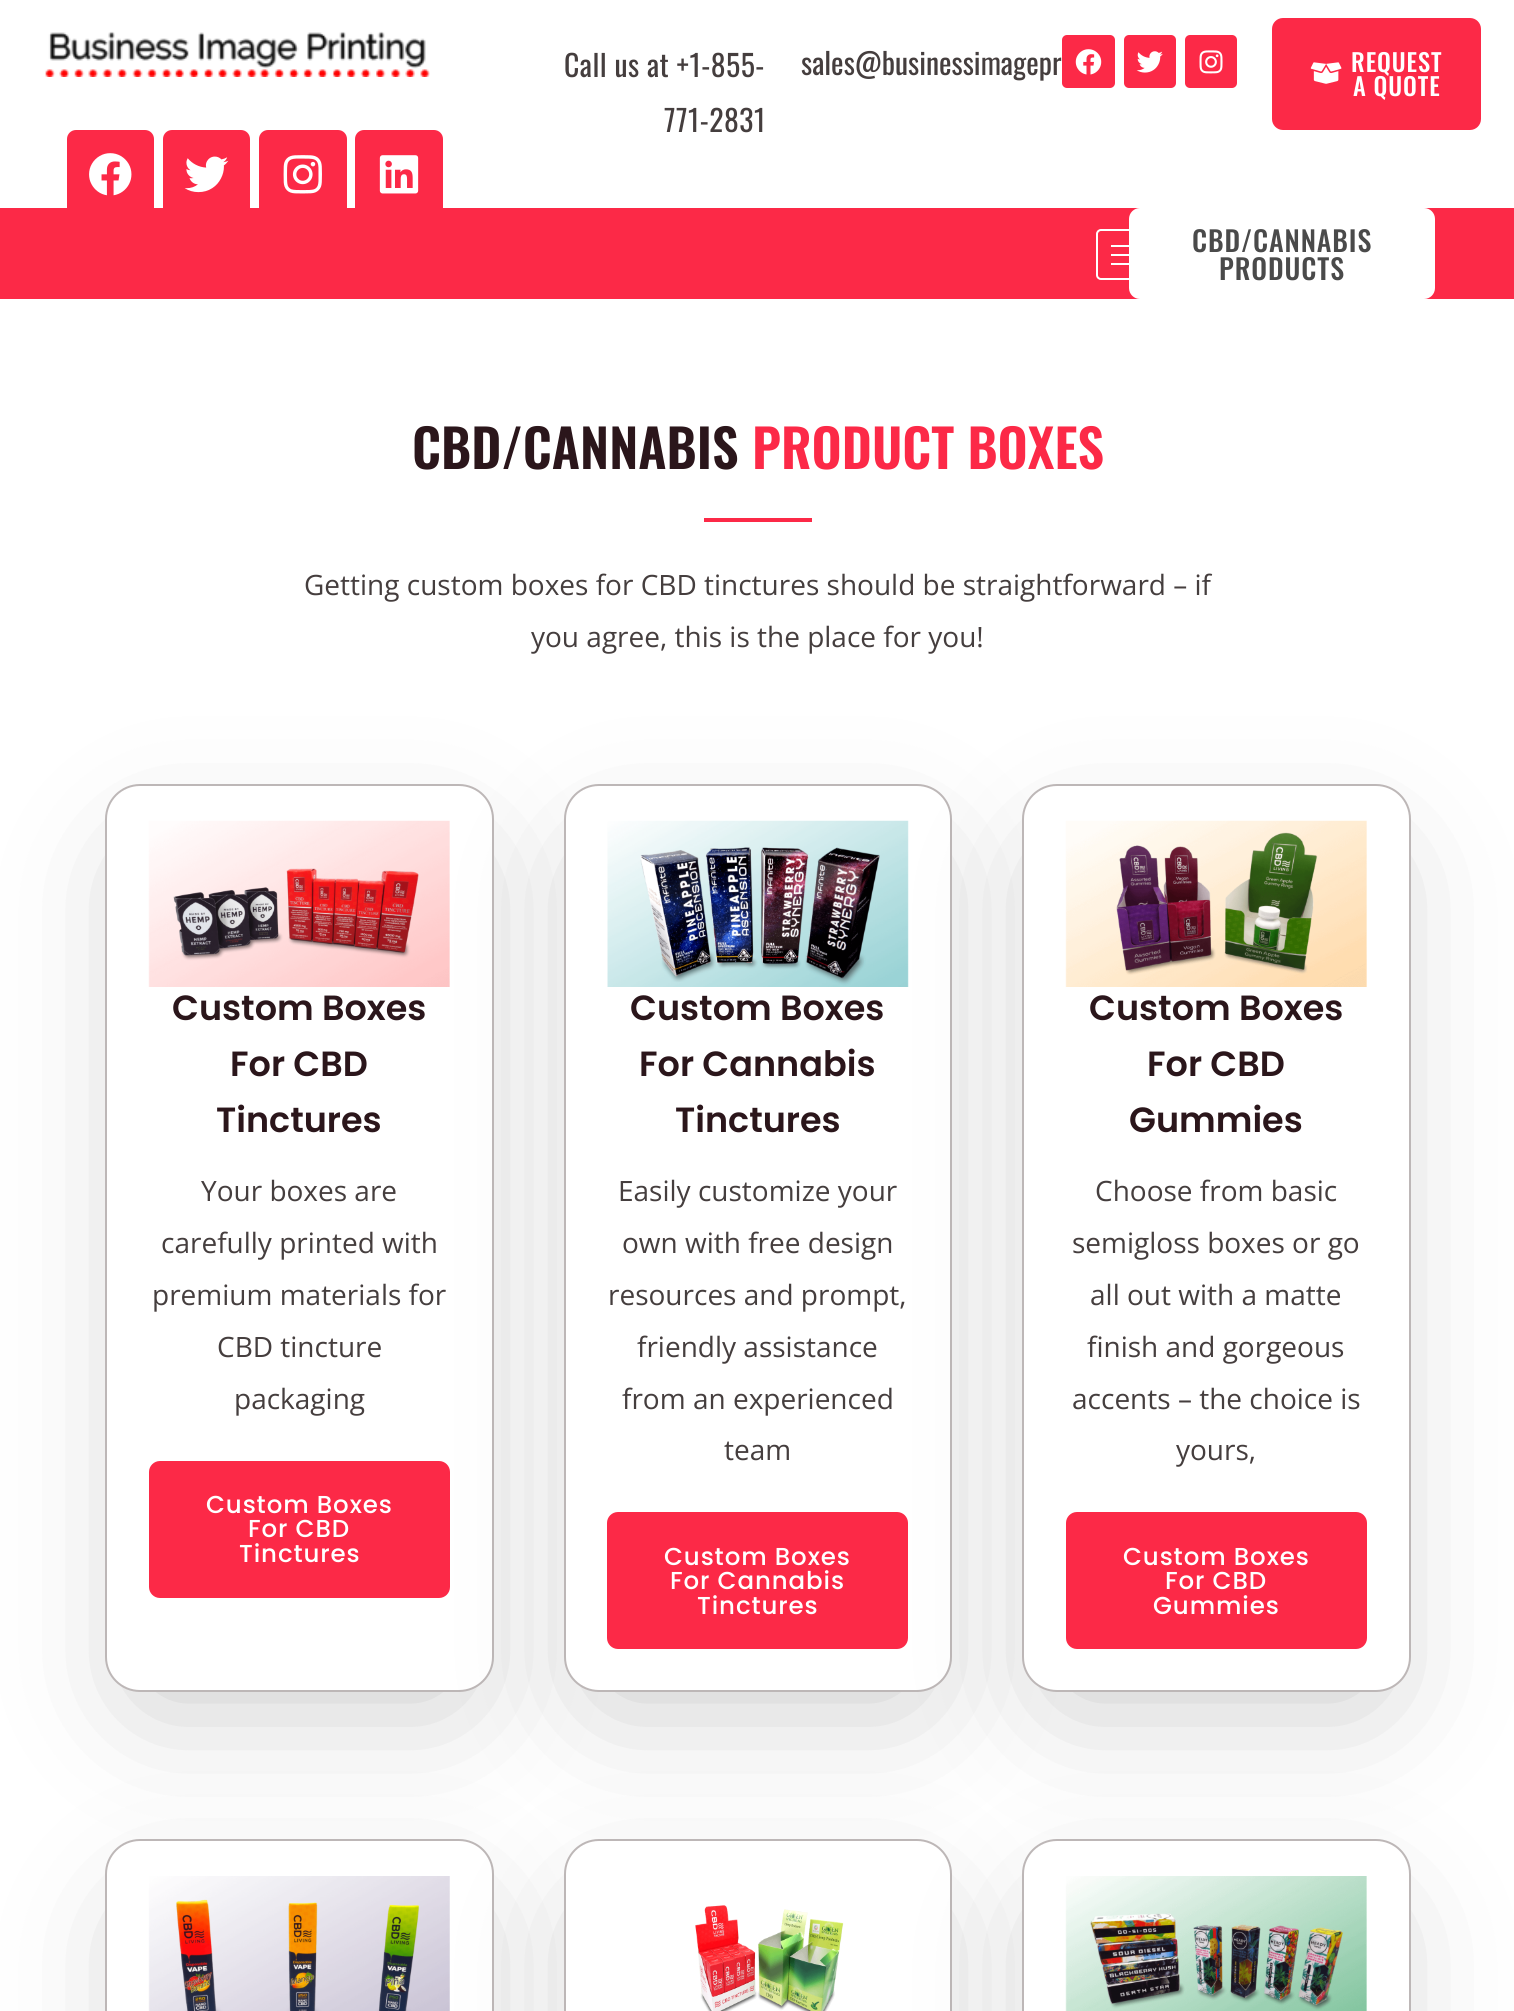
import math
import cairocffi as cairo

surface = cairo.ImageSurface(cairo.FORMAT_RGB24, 1514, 2011)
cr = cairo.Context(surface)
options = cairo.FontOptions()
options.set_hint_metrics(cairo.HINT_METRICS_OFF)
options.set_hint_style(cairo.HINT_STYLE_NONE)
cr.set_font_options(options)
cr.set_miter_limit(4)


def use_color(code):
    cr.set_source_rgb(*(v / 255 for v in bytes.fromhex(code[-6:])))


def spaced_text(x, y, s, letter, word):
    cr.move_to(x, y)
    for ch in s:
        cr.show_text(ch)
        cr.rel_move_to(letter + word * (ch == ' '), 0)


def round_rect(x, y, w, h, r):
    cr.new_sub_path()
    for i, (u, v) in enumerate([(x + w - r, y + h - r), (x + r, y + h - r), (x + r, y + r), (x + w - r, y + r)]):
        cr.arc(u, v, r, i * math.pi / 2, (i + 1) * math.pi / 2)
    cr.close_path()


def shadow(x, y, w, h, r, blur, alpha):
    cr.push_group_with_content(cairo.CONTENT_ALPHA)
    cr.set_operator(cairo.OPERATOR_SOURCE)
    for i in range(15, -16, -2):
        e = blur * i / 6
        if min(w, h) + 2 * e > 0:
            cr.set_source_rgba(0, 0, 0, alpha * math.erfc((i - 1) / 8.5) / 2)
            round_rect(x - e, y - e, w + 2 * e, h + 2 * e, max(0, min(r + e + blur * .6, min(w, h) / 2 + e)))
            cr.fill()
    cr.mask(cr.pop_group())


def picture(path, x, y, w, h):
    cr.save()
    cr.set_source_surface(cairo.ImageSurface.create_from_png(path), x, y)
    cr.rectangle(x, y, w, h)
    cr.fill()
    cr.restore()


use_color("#ffffff")
cr.paint()
picture("img1.png", 45, 31, 385, 46)
use_color("#fc2947")
round_rect(67, 130, 87, 87, 9)
cr.fill()
picture("img2.png", 89, 153, 43, 43)
round_rect(163, 130, 87, 87, 9)
cr.fill()
picture("img3.png", 184, 156, 45, 37)
round_rect(259, 130, 88, 87, 9)
cr.fill()
picture("img4.png", 283, 155, 39, 39)
round_rect(355, 130, 88, 87, 9)
cr.fill()
picture("img5.png", 379, 155, 40, 39)
cr.select_font_face("Oswald")
cr.set_font_size(29.75)
use_color("#453e3e")
spaced_text(564, 77, "Call us at +1-855-", 0.5, 0)
spaced_text(664, 132, "771-2831", 0.5, 0)
cr.move_to(801, 75)
cr.show_text("sales@businessimagepr")
use_color("#fc2947")
round_rect(1062, 35, 53, 53, 5)
cr.fill()
picture("img6.png", 1075, 49, 27, 26)
round_rect(1124, 35, 52, 53, 5)
cr.fill()
picture("img7.png", 1136, 51, 27, 22)
round_rect(1185, 35, 52, 53, 5)
cr.fill()
picture("img8.png", 1199, 50, 24, 24)
round_rect(1272, 18, 209, 112, 11)
cr.fill()
picture("img9.png", 1310, 62, 32, 22)
cr.select_font_face("Oswald Medium")
cr.set_font_size(24.5)
use_color("#ffffff")
spaced_text(1351, 72, "REQUEST", 0.9, 0)
spaced_text(1353, 96, "A QUOTE", 0.9, 0)
use_color("#fc2947")
cr.rectangle(0, 208, 1514, 91)
cr.fill()
use_color("#ffffff")
round_rect(1129, 208, 306, 91, 11)
cr.fill()
round_rect(1097, 230, 76, 49, 4)
cr.stroke()
cr.rectangle(1111, 245, 18, 2)
cr.fill()
cr.rectangle(1111, 254, 18, 2)
cr.fill()
cr.rectangle(1111, 263, 18, 2)
cr.fill()
cr.set_font_size(28)
use_color("#4a4a4a")
spaced_text(1192, 252, "CBD/CANNABIS", 0.9, 0)
spaced_text(1219, 280, "PRODUCTS", 0.9, 0)
cr.select_font_face("Oswald SemiBold")
cr.set_font_size(52.5)
use_color("#2b161b")
cr.move_to(412, 469)
cr.show_text("CBD/CANNABIS")
use_color("#fc2947")
cr.move_to(752, 469)
cr.show_text("PRODUCT BOXES")
cr.rectangle(704, 518, 108, 4)
cr.fill()
cr.select_font_face("Open Sans")
cr.set_font_size(28)
use_color("#453e3e")
cr.move_to(304, 595)
cr.show_text("Getting custom boxes for CBD tinctures should be straightforward – if")
cr.move_to(531, 647)
cr.show_text("you agree, this is the place for you!")
use_color("#000000")
shadow(147, 868, 305, 824, 0, 70, 0.24)
use_color("#ffffff")
round_rect(106, 785, 387, 906, 34)
cr.fill_preserve()
use_color("#bdb7b7")
cr.stroke()
picture("img10.png", 148, 820, 302, 167)
cr.select_font_face("Poppins SemiBold")
cr.set_font_size(35)
use_color("#2b161b")
cr.move_to(172, 1020)
cr.show_text("Custom Boxes")
cr.move_to(230, 1076)
cr.show_text("For CBD")
cr.move_to(216, 1132)
cr.show_text("Tinctures")
cr.select_font_face("Open Sans")
cr.set_font_size(28)
use_color("#453e3e")
cr.move_to(201, 1201)
cr.show_text("Your boxes are")
cr.move_to(161, 1253)
cr.show_text("carefully printed with")
cr.move_to(152, 1305)
cr.show_text("premium materials for")
cr.move_to(217, 1357)
cr.show_text("CBD tincture")
cr.move_to(234, 1409)
cr.show_text("packaging")
use_color("#fc2947")
round_rect(149, 1461, 301, 137, 11)
cr.fill()
cr.select_font_face("Poppins Medium")
cr.set_font_size(24.5)
use_color("#ffffff")
spaced_text(206, 1513, "Custom Boxes", 0.9, 0)
spaced_text(248, 1537, "For CBD", 0.9, 0)
spaced_text(239, 1562, "Tinctures", 0.9, 0)
use_color("#000000")
shadow(606, 868, 304, 824, 0, 70, 0.24)
use_color("#ffffff")
round_rect(565, 785, 386, 906, 34)
cr.fill_preserve()
use_color("#bdb7b7")
cr.stroke()
picture("img11.png", 607, 820, 302, 167)
cr.select_font_face("Poppins SemiBold")
cr.set_font_size(35)
use_color("#2b161b")
cr.move_to(630, 1020)
cr.show_text("Custom Boxes")
cr.move_to(639, 1076)
cr.show_text("For Cannabis")
cr.move_to(675, 1132)
cr.show_text("Tinctures")
cr.select_font_face("Open Sans")
cr.set_font_size(28)
use_color("#453e3e")
cr.move_to(618, 1201)
cr.show_text("Easily customize your")
cr.move_to(622, 1253)
cr.show_text("own with free design")
cr.move_to(608, 1305)
cr.show_text("resources and prompt,")
cr.move_to(637, 1357)
cr.show_text("friendly assistance")
cr.move_to(622, 1409)
cr.show_text("from an experienced")
cr.move_to(724, 1460)
cr.show_text("team")
use_color("#fc2947")
round_rect(607, 1512, 301, 137, 11)
cr.fill()
cr.select_font_face("Poppins Medium")
cr.set_font_size(24.5)
use_color("#ffffff")
spaced_text(664, 1565, "Custom Boxes", 0.9, 0)
spaced_text(670, 1589, "For Cannabis", 0.9, 0)
spaced_text(697, 1614, "Tinctures", 0.9, 0)
use_color("#000000")
shadow(1064, 868, 305, 824, 0, 70, 0.24)
use_color("#ffffff")
round_rect(1023, 785, 387, 906, 34)
cr.fill_preserve()
use_color("#bdb7b7")
cr.stroke()
picture("img12.png", 1065, 820, 302, 167)
cr.select_font_face("Poppins SemiBold")
cr.set_font_size(35)
use_color("#2b161b")
cr.move_to(1089, 1020)
cr.show_text("Custom Boxes")
cr.move_to(1147, 1076)
cr.show_text("For CBD")
cr.move_to(1129, 1132)
cr.show_text("Gummies")
cr.select_font_face("Open Sans")
cr.set_font_size(28)
use_color("#453e3e")
cr.move_to(1095, 1201)
cr.show_text("Choose from basic")
cr.move_to(1072, 1253)
cr.show_text("semigloss boxes or go")
cr.move_to(1090, 1305)
cr.show_text("all out with a matte")
cr.move_to(1087, 1357)
cr.show_text("finish and gorgeous")
cr.move_to(1072, 1409)
cr.show_text("accents – the choice is")
cr.move_to(1176, 1460)
cr.show_text("yours,")
use_color("#fc2947")
round_rect(1066, 1512, 301, 137, 11)
cr.fill()
cr.select_font_face("Poppins Medium")
cr.set_font_size(24.5)
use_color("#ffffff")
spaced_text(1123, 1565, "Custom Boxes", 0.9, 0)
spaced_text(1165, 1589, "For CBD", 0.9, 0)
spaced_text(1153, 1614, "Gummies", 0.9, 0)
use_color("#000000")
shadow(147, 1923, 305, 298, 0, 70, 0.24)
use_color("#ffffff")
round_rect(106, 1840, 387, 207, 34)
cr.fill_preserve()
use_color("#bdb7b7")
cr.stroke()
picture("img13.png", 148, 1876, 302, 135)
use_color("#000000")
shadow(606, 1923, 304, 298, 0, 70, 0.24)
use_color("#ffffff")
round_rect(565, 1840, 386, 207, 34)
cr.fill_preserve()
use_color("#bdb7b7")
cr.stroke()
picture("img14.png", 695, 1905, 149, 106)
use_color("#000000")
shadow(1064, 1923, 305, 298, 0, 70, 0.24)
use_color("#ffffff")
round_rect(1023, 1840, 387, 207, 34)
cr.fill_preserve()
use_color("#bdb7b7")
cr.stroke()
picture("img15.png", 1065, 1876, 302, 135)
surface.write_to_png("result.png")
